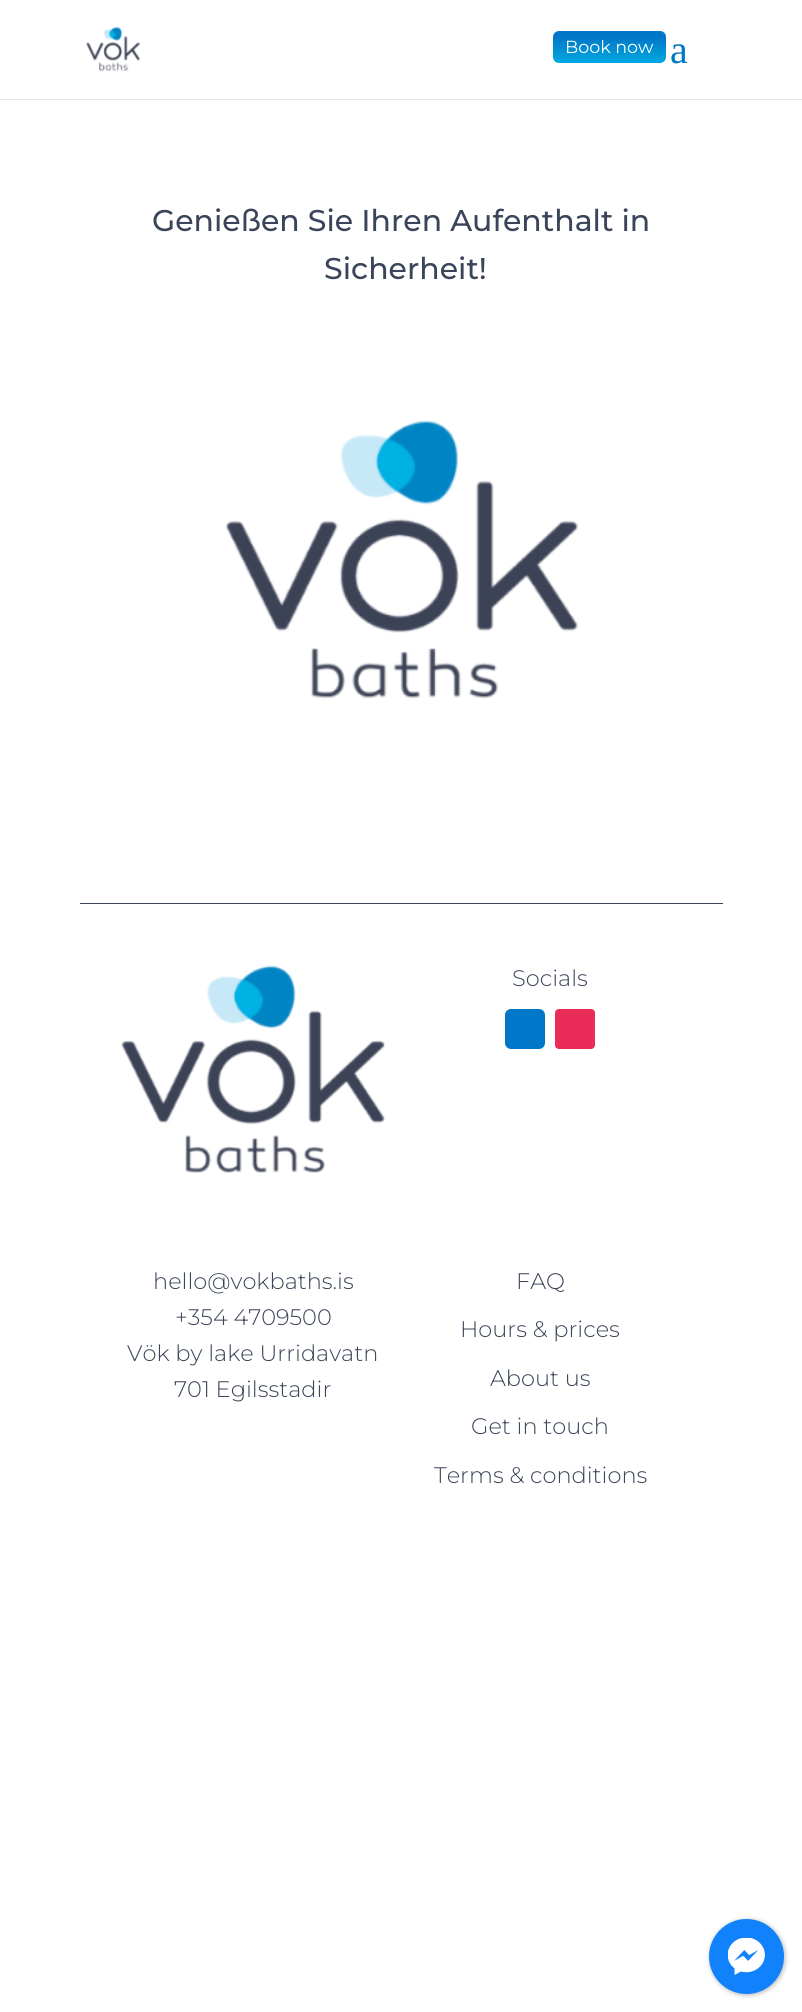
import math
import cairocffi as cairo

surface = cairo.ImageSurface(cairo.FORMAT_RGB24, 802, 2012)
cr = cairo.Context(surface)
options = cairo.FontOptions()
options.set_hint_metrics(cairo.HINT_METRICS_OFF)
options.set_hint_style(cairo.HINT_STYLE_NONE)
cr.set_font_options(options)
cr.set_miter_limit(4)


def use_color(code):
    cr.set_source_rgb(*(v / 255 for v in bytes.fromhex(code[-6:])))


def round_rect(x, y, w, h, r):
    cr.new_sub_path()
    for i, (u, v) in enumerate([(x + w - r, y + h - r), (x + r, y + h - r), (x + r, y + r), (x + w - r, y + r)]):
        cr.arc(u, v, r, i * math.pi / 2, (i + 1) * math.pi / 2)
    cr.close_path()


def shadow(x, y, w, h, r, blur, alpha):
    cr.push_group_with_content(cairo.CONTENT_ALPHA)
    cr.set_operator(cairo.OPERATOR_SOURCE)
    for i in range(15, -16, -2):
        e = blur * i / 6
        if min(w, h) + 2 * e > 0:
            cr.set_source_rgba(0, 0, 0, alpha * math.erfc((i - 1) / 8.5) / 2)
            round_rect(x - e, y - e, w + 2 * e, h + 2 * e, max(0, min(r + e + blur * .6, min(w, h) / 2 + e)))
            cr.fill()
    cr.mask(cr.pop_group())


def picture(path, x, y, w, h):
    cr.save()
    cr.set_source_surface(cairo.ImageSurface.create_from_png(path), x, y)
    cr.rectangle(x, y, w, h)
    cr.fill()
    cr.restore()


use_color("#ffffff")
cr.paint()
use_color("#e6e6e6")
cr.new_path()
cr.move_to(0, 99)
cr.line_to(0, 100)
cr.line_to(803, 100)
cr.line_to(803, 0)
cr.line_to(802, 0)
cr.line_to(802, 99)
cr.close_path()
cr.fill()
picture("img1.png", 86, 26, 55, 46)
gradient = cairo.LinearGradient(609, 32, 609, 63)
gradient.add_color_stop_rgba(0.16, 0, 0.467, 0.784, 1)
gradient.add_color_stop_rgba(1, 0, 0.663, 0.878, 1)
cr.set_source(gradient)
round_rect(553, 31, 113, 32, 6)
cr.fill()
cr.select_font_face("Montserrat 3 Thin")
cr.set_font_size(17.5)
use_color("#ffffff")
cr.move_to(565, 53)
cr.show_text("Book now")
cr.select_font_face("Liberation Serif")
cr.set_font_size(40)
use_color("#0077c8")
cr.move_to(670, 63)
cr.show_text("a")
cr.select_font_face("Montserrat Thin")
cr.set_font_size(30)
use_color("#3b4559")
cr.move_to(152, 231)
cr.show_text("Genießen Sie Ihren Aufenthalt in")
cr.move_to(324, 279)
cr.show_text("Sicherheit!")
picture("img2.png", 225, 420, 354, 279)
cr.rectangle(80, 903, 643, 1)
cr.fill()
picture("img3.png", 121, 965, 265, 208)
cr.select_font_face("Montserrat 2 Thin")
cr.set_font_size(22.5)
cr.move_to(512, 986)
cr.show_text("Socials")
use_color("#0077c8")
round_rect(505, 1009, 40, 40, 6)
cr.fill()
use_color("#ea2c59")
round_rect(555, 1009, 40, 40, 4)
cr.fill()
use_color("#3b4559")
cr.move_to(153, 1289)
cr.show_text("hello@vokbaths.is")
cr.move_to(175, 1325)
cr.show_text("+354 4709500")
cr.move_to(127, 1361)
cr.show_text("Vök by lake Urridavatn")
cr.move_to(174, 1397)
cr.show_text("701 Egilsstadir")
cr.move_to(516, 1289)
cr.show_text("FAQ")
cr.move_to(460, 1337)
cr.show_text("Hours & prices")
cr.move_to(490, 1386)
cr.show_text("About us")
cr.move_to(471, 1434)
cr.show_text("Get in touch")
cr.move_to(434, 1483)
cr.show_text("Terms & conditions")
use_color("#000000")
shadow(710, 1920, 75, 75, 37.5, 2.5, 0.3)
use_color("#1182fc")
cr.arc(746.5, 1956.5, 37.5, 0, 2 * math.pi)
cr.fill()
picture("img4.png", 728, 1938, 37, 37)
surface.write_to_png("result.png")
